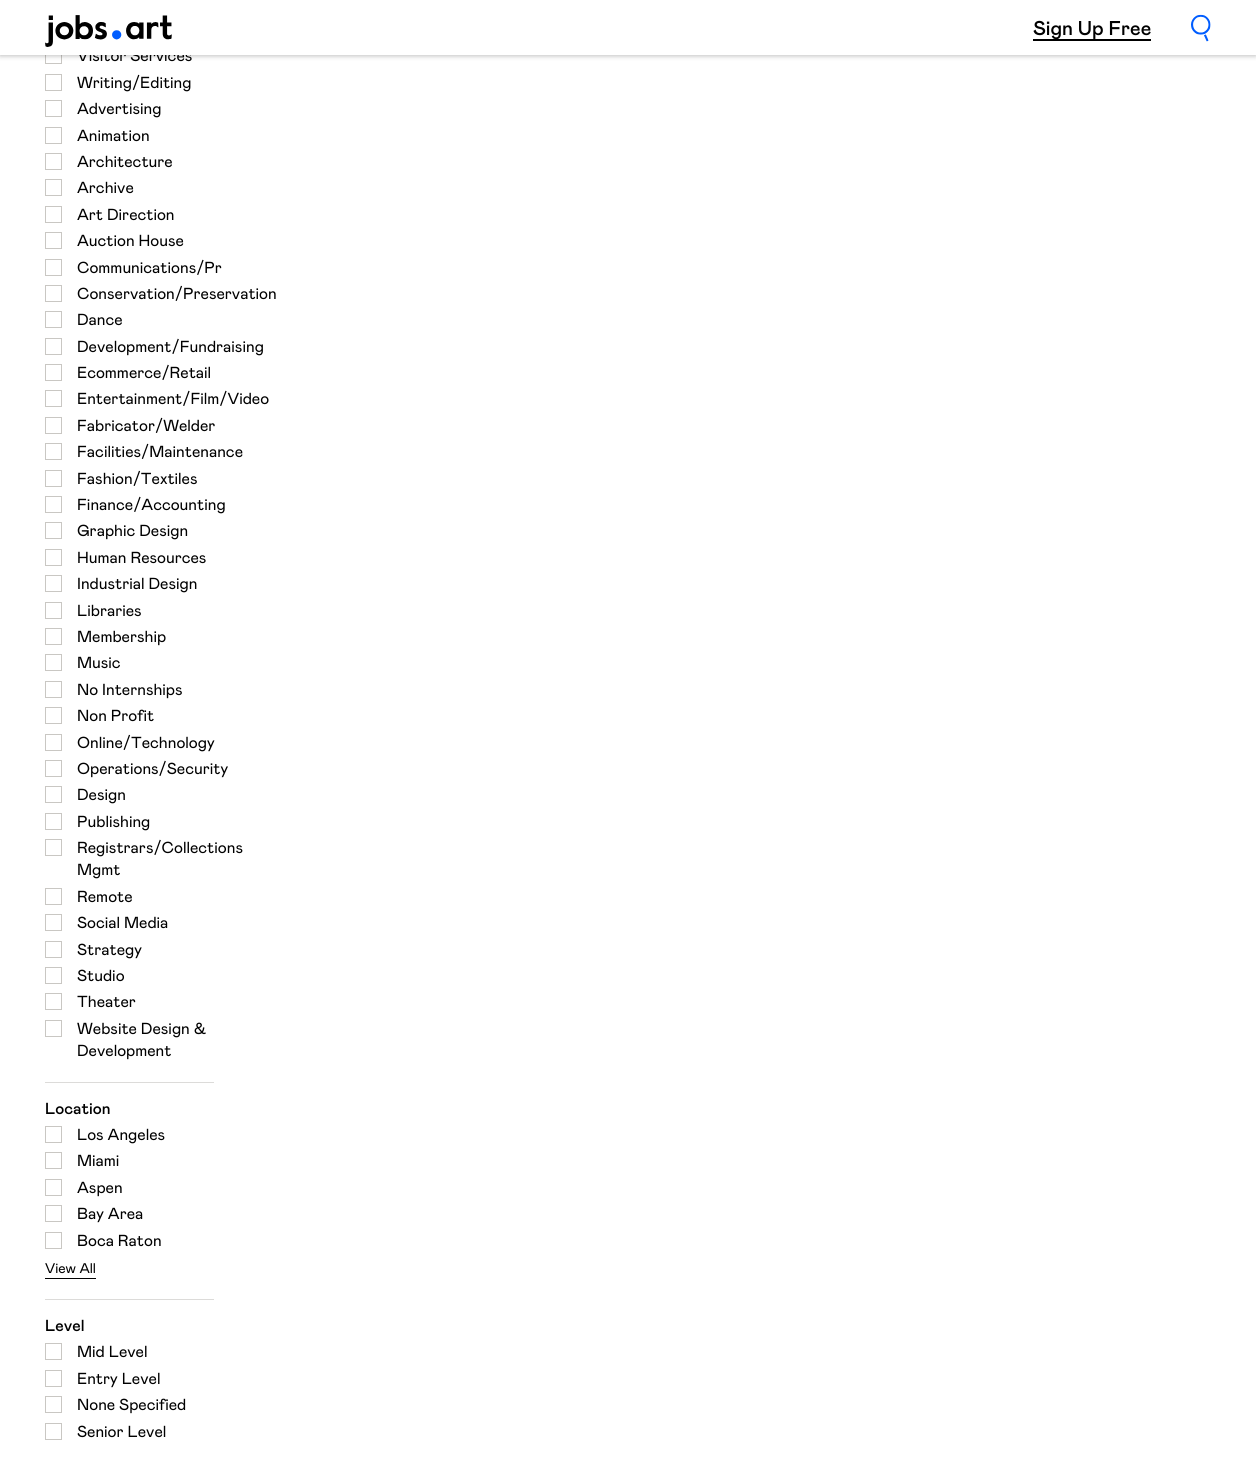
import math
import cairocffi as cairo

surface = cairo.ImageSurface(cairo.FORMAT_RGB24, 1256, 1464)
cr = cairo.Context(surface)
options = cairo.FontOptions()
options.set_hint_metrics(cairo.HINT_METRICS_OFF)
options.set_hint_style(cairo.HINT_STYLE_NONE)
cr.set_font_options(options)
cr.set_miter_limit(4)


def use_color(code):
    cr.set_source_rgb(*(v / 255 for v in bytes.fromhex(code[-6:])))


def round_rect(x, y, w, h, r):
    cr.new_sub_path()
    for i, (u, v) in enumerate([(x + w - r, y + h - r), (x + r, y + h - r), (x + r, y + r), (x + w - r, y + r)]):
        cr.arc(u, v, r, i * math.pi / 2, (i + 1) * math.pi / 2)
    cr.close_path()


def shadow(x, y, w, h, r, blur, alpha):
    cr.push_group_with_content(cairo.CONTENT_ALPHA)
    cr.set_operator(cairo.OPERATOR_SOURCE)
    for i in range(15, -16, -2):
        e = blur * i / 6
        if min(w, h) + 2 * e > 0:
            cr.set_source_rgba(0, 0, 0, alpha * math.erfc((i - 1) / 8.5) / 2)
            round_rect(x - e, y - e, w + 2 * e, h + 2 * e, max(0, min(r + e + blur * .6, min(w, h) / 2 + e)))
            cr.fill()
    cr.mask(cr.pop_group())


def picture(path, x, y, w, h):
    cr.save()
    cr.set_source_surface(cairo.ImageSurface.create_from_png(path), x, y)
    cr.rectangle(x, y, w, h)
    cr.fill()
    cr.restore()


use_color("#ffffff")
cr.paint()
cr.rectangle(45.5, 47.5, 16, 16)
use_color("#c9c7c3")
cr.set_line_width(1)
cr.stroke()
use_color("#000000")
shadow(0, 1, 1256, 55, 0, 2.5, 0.25)
cr.select_font_face("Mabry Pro")
cr.set_font_size(16)
use_color("#000000")
cr.move_to(77, 61)
cr.show_text("Visitor Services")
use_color("#ffffff")
cr.rectangle(0, 0, 1256, 55)
cr.fill()
picture("img1.png", 45, 15, 127, 32)
use_color("#000000")
cr.rectangle(1033, 39, 118, 2)
cr.fill()
cr.select_font_face("Mabry Pro Medium")
cr.set_font_size(20)
cr.move_to(1033, 35)
cr.show_text("Sign Up Free")
picture("img2.png", 1191, 14, 20, 28)
cr.rectangle(45.5, 74.5, 16, 16)
use_color("#c9c7c3")
cr.stroke()
cr.select_font_face("Mabry Pro")
cr.set_font_size(16)
use_color("#000000")
cr.move_to(77, 88)
cr.show_text("Writing/Editing")
cr.rectangle(45.5, 100.5, 16, 16)
use_color("#c9c7c3")
cr.stroke()
use_color("#000000")
cr.move_to(77, 114)
cr.show_text("Advertising")
cr.rectangle(45.5, 127.5, 16, 16)
use_color("#c9c7c3")
cr.stroke()
use_color("#000000")
cr.move_to(77, 141)
cr.show_text("Animation")
cr.rectangle(45.5, 153.5, 16, 16)
use_color("#c9c7c3")
cr.stroke()
use_color("#000000")
cr.move_to(77, 167)
cr.show_text("Architecture")
cr.rectangle(45.5, 179.5, 16, 16)
use_color("#c9c7c3")
cr.stroke()
use_color("#000000")
cr.move_to(77, 193)
cr.show_text("Archive")
cr.rectangle(45.5, 206.5, 16, 16)
use_color("#c9c7c3")
cr.stroke()
use_color("#000000")
cr.move_to(77, 220)
cr.show_text("Art Direction")
cr.rectangle(45.5, 232.5, 16, 16)
use_color("#c9c7c3")
cr.stroke()
use_color("#000000")
cr.move_to(77, 246)
cr.show_text("Auction House")
cr.rectangle(45.5, 259.5, 16, 16)
use_color("#c9c7c3")
cr.stroke()
use_color("#000000")
cr.move_to(77, 273)
cr.show_text("Communications/Pr")
cr.rectangle(45.5, 285.5, 16, 16)
use_color("#c9c7c3")
cr.stroke()
use_color("#000000")
cr.move_to(77, 299)
cr.show_text("Conservation/Preservation")
cr.rectangle(45.5, 311.5, 16, 16)
use_color("#c9c7c3")
cr.stroke()
use_color("#000000")
cr.move_to(77, 325)
cr.show_text("Dance")
cr.rectangle(45.5, 338.5, 16, 16)
use_color("#c9c7c3")
cr.stroke()
use_color("#000000")
cr.move_to(77, 352)
cr.show_text("Development/Fundraising")
cr.rectangle(45.5, 364.5, 16, 16)
use_color("#c9c7c3")
cr.stroke()
use_color("#000000")
cr.move_to(77, 378)
cr.show_text("Ecommerce/Retail")
cr.rectangle(45.5, 390.5, 16, 16)
use_color("#c9c7c3")
cr.stroke()
use_color("#000000")
cr.move_to(77, 404)
cr.show_text("Entertainment/Film/Video")
cr.rectangle(45.5, 417.5, 16, 16)
use_color("#c9c7c3")
cr.stroke()
use_color("#000000")
cr.move_to(77, 431)
cr.show_text("Fabricator/Welder")
cr.rectangle(45.5, 443.5, 16, 16)
use_color("#c9c7c3")
cr.stroke()
use_color("#000000")
cr.move_to(77, 457)
cr.show_text("Facilities/Maintenance")
cr.rectangle(45.5, 470.5, 16, 16)
use_color("#c9c7c3")
cr.stroke()
use_color("#000000")
cr.move_to(77, 484)
cr.show_text("Fashion/Textiles")
cr.rectangle(45.5, 496.5, 16, 16)
use_color("#c9c7c3")
cr.stroke()
use_color("#000000")
cr.move_to(77, 510)
cr.show_text("Finance/Accounting")
cr.rectangle(45.5, 522.5, 16, 16)
use_color("#c9c7c3")
cr.stroke()
use_color("#000000")
cr.move_to(77, 536)
cr.show_text("Graphic Design")
cr.rectangle(45.5, 549.5, 16, 16)
use_color("#c9c7c3")
cr.stroke()
use_color("#000000")
cr.move_to(77, 563)
cr.show_text("Human Resources")
cr.rectangle(45.5, 575.5, 16, 16)
use_color("#c9c7c3")
cr.stroke()
use_color("#000000")
cr.move_to(77, 589)
cr.show_text("Industrial Design")
cr.rectangle(45.5, 602.5, 16, 16)
use_color("#c9c7c3")
cr.stroke()
use_color("#000000")
cr.move_to(77, 616)
cr.show_text("Libraries")
cr.rectangle(45.5, 628.5, 16, 16)
use_color("#c9c7c3")
cr.stroke()
use_color("#000000")
cr.move_to(77, 642)
cr.show_text("Membership")
cr.rectangle(45.5, 654.5, 16, 16)
use_color("#c9c7c3")
cr.stroke()
use_color("#000000")
cr.move_to(77, 668)
cr.show_text("Music")
cr.rectangle(45.5, 681.5, 16, 16)
use_color("#c9c7c3")
cr.stroke()
use_color("#000000")
cr.move_to(77, 695)
cr.show_text("No Internships")
cr.rectangle(45.5, 707.5, 16, 16)
use_color("#c9c7c3")
cr.stroke()
use_color("#000000")
cr.move_to(77, 721)
cr.show_text("Non Profit")
cr.rectangle(45.5, 734.5, 16, 16)
use_color("#c9c7c3")
cr.stroke()
use_color("#000000")
cr.move_to(77, 748)
cr.show_text("Online/Technology")
cr.rectangle(45.5, 760.5, 16, 16)
use_color("#c9c7c3")
cr.stroke()
use_color("#000000")
cr.move_to(77, 774)
cr.show_text("Operations/Security")
cr.rectangle(45.5, 786.5, 16, 16)
use_color("#c9c7c3")
cr.stroke()
use_color("#000000")
cr.move_to(77, 800)
cr.show_text("Design")
cr.rectangle(45.5, 813.5, 16, 16)
use_color("#c9c7c3")
cr.stroke()
use_color("#000000")
cr.move_to(77, 827)
cr.show_text("Publishing")
cr.rectangle(45.5, 839.5, 16, 16)
use_color("#c9c7c3")
cr.stroke()
use_color("#000000")
cr.move_to(77, 853)
cr.show_text("Registrars/Collections")
cr.move_to(77, 875)
cr.show_text("Mgmt")
cr.rectangle(45.5, 888.5, 16, 16)
use_color("#c9c7c3")
cr.stroke()
use_color("#000000")
cr.move_to(77, 902)
cr.show_text("Remote")
cr.rectangle(45.5, 914.5, 16, 16)
use_color("#c9c7c3")
cr.stroke()
use_color("#000000")
cr.move_to(77, 928)
cr.show_text("Social Media")
cr.rectangle(45.5, 941.5, 16, 16)
use_color("#c9c7c3")
cr.stroke()
use_color("#000000")
cr.move_to(77, 955)
cr.show_text("Strategy")
cr.rectangle(45.5, 967.5, 16, 16)
use_color("#c9c7c3")
cr.stroke()
use_color("#000000")
cr.move_to(77, 981)
cr.show_text("Studio")
cr.rectangle(45.5, 993.5, 16, 16)
use_color("#c9c7c3")
cr.stroke()
use_color("#000000")
cr.move_to(77, 1007)
cr.show_text("Theater")
cr.rectangle(45.5, 1020.5, 16, 16)
use_color("#c9c7c3")
cr.stroke()
use_color("#000000")
cr.move_to(77, 1034)
cr.show_text("Website Design &")
cr.move_to(77, 1056)
cr.show_text("Development")
use_color("#dcdbd9")
cr.rectangle(45, 1082, 169, 1)
cr.fill()
cr.select_font_face("Mabry Pro Medium")
use_color("#000000")
cr.move_to(45, 1114)
cr.show_text("Location")
cr.rectangle(45.5, 1126.5, 16, 16)
use_color("#c9c7c3")
cr.stroke()
cr.select_font_face("Mabry Pro")
use_color("#000000")
cr.move_to(77, 1140)
cr.show_text("Los Angeles")
cr.rectangle(45.5, 1152.5, 16, 16)
use_color("#c9c7c3")
cr.stroke()
use_color("#000000")
cr.move_to(77, 1166)
cr.show_text("Miami")
cr.rectangle(45.5, 1179.5, 16, 16)
use_color("#c9c7c3")
cr.stroke()
use_color("#000000")
cr.move_to(77, 1193)
cr.show_text("Aspen")
cr.rectangle(45.5, 1205.5, 16, 16)
use_color("#c9c7c3")
cr.stroke()
use_color("#000000")
cr.move_to(77, 1219)
cr.show_text("Bay Area")
cr.rectangle(45.5, 1232.5, 16, 16)
use_color("#c9c7c3")
cr.stroke()
use_color("#000000")
cr.move_to(77, 1246)
cr.show_text("Boca Raton")
cr.rectangle(45, 1278, 51, 1)
cr.fill()
cr.set_font_size(14)
cr.move_to(45, 1273)
cr.show_text("View All")
use_color("#dcdbd9")
cr.rectangle(45, 1299, 169, 1)
cr.fill()
cr.select_font_face("Mabry Pro Medium")
cr.set_font_size(16)
use_color("#000000")
cr.move_to(45, 1331)
cr.show_text("Level")
cr.rectangle(45.5, 1343.5, 16, 16)
use_color("#c9c7c3")
cr.stroke()
cr.select_font_face("Mabry Pro")
use_color("#000000")
cr.move_to(77, 1357)
cr.show_text("Mid Level")
cr.rectangle(45.5, 1370.5, 16, 16)
use_color("#c9c7c3")
cr.stroke()
use_color("#000000")
cr.move_to(77, 1384)
cr.show_text("Entry Level")
cr.rectangle(45.5, 1396.5, 16, 16)
use_color("#c9c7c3")
cr.stroke()
use_color("#000000")
cr.move_to(77, 1410)
cr.show_text("None Specified")
cr.rectangle(45.5, 1423.5, 16, 16)
use_color("#c9c7c3")
cr.stroke()
use_color("#000000")
cr.move_to(77, 1437)
cr.show_text("Senior Level")
surface.write_to_png("result.png")
